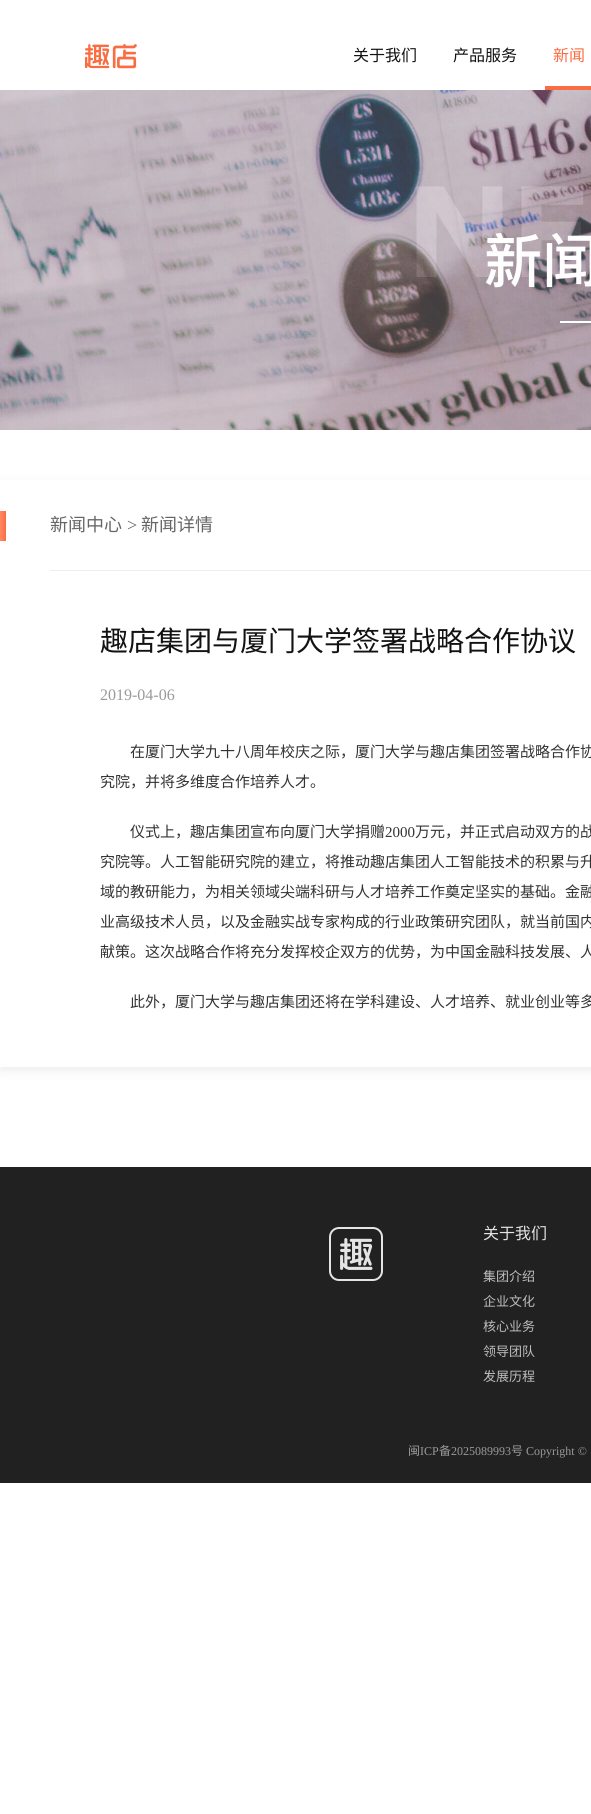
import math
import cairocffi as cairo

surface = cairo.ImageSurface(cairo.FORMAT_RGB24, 591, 1814)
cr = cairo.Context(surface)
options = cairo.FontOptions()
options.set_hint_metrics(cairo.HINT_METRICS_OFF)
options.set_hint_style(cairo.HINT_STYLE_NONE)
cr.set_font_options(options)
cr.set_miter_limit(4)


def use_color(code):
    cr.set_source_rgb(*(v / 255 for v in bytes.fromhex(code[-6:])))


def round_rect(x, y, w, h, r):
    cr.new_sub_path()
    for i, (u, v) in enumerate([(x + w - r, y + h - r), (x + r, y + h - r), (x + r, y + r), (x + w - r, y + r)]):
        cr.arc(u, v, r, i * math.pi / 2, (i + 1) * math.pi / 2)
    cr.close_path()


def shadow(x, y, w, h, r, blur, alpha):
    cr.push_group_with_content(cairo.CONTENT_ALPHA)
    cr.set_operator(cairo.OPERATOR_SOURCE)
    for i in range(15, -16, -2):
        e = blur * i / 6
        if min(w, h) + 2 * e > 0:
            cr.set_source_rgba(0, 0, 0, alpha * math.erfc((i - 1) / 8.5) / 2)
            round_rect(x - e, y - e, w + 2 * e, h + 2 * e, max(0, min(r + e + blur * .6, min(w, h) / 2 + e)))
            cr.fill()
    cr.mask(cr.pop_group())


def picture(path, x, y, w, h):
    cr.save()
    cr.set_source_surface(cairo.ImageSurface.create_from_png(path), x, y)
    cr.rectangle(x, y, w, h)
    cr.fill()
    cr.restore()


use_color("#ffffff")
cr.paint()
picture("img1.png", 85, 44, 52, 25)
cr.select_font_face("Noto Sans CJK SC")
cr.set_font_size(16)
use_color("#121213")
cr.move_to(353, 61)
cr.show_text("关于我们")
cr.move_to(453, 61)
cr.show_text("产品服务")
use_color("#fa6c41")
cr.move_to(553, 61)
cr.show_text("新闻")
cr.rectangle(545, 86, 46, 4)
cr.fill()
picture("img2.png", 0, 90, 591, 340)
cr.save()
cr.set_fill_rule(cairo.FILL_RULE_EVEN_ODD)
cr.new_path()
cr.move_to(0, 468)
cr.line_to(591, 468)
cr.line_to(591, 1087)
cr.line_to(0, 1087)
cr.close_path()
cr.move_to(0, 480)
cr.line_to(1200, 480)
cr.line_to(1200, 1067)
cr.line_to(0, 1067)
cr.close_path()
cr.clip()
use_color("#c8c8c8")
shadow(0, 484, 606, 587, 0, 5, 0.32)
cr.restore()
gradient = cairo.LinearGradient(6, 526, 0, 526)
gradient.add_color_stop_rgba(0, 0.98, 0.424, 0.255, 1)
gradient.add_color_stop_rgba(1, 1, 0.537, 0.388, 1)
cr.set_source(gradient)
cr.rectangle(0, 511, 6, 30)
cr.fill()
use_color("#eeeeee")
cr.rectangle(50, 570, 541, 1)
cr.fill()
cr.set_font_size(18)
use_color("#666666")
cr.move_to(50, 531)
cr.show_text("新闻中心")
cr.select_font_face("Liberation Serif")
cr.move_to(127, 531)
cr.show_text(">")
cr.select_font_face("Noto Sans CJK SC")
cr.move_to(141, 531)
cr.show_text("新闻详情")
cr.set_font_size(28)
use_color("#121213")
cr.move_to(100, 651)
cr.show_text("趣店集团与厦门大学签署战略合作协议")
cr.select_font_face("Liberation Serif")
cr.set_font_size(16)
use_color("#999999")
cr.move_to(100, 700)
cr.show_text("2019-04-06")
cr.select_font_face("Noto Sans CJK SC")
cr.set_font_size(15)
use_color("#333333")
cr.move_to(130, 757)
cr.show_text("在厦门大学九十八周年校庆之际，厦门大学与趣店集团签署战略合作协")
cr.move_to(100, 787)
cr.show_text("究院，并将多维度合作培养人才。")
cr.move_to(130, 837)
cr.show_text("仪式上，趣店集团宣布向厦门大学捐赠")
cr.select_font_face("Liberation Serif")
cr.move_to(385, 837)
cr.show_text("2000")
cr.select_font_face("Noto Sans CJK SC")
cr.move_to(415, 837)
cr.show_text("万元，并正式启动双方的战")
cr.move_to(100, 867)
cr.show_text("究院等。人工智能研究院的建立，将推动趣店集团人工智能技术的积累与升")
cr.move_to(100, 897)
cr.show_text("域的教研能力，为相关领域尖端科研与人才培养工作奠定坚实的基础。金融")
cr.move_to(100, 927)
cr.show_text("业高级技术人员，以及金融实战专家构成的行业政策研究团队，就当前国内")
cr.move_to(100, 957)
cr.show_text("献策。这次战略合作将充分发挥校企双方的优势，为中国金融科技发展、人")
cr.move_to(130, 1007)
cr.show_text("此外，厦门大学与趣店集团还将在学科建设、人才培养、就业创业等多")
use_color("#212121")
cr.rectangle(0, 1167, 591, 316)
cr.fill()
picture("img3.png", 329, 1227, 54, 54)
cr.set_font_size(16)
use_color("#e4e4e4")
cr.move_to(483, 1239)
cr.show_text("关于我们")
cr.set_font_size(13)
use_color("#bebebe")
cr.move_to(483, 1281)
cr.show_text("集团介绍")
cr.move_to(483, 1306)
cr.show_text("企业文化")
cr.move_to(483, 1331)
cr.show_text("核心业务")
cr.move_to(483, 1356)
cr.show_text("领导团队")
cr.move_to(483, 1381)
cr.show_text("发展历程")
cr.set_font_size(12)
use_color("#999999")
cr.move_to(408, 1455)
cr.show_text("闽")
cr.select_font_face("Liberation Serif")
cr.move_to(420, 1455)
cr.show_text("ICP")
cr.select_font_face("Noto Sans CJK SC")
cr.move_to(439, 1455)
cr.show_text("备")
cr.select_font_face("Liberation Serif")
cr.move_to(451, 1455)
cr.show_text("2025089993")
cr.select_font_face("Noto Sans CJK SC")
cr.move_to(511, 1455)
cr.show_text("号")
cr.select_font_face("Liberation Serif")
cr.move_to(526, 1455)
cr.show_text("Copyright ©")
surface.write_to_png("result.png")
